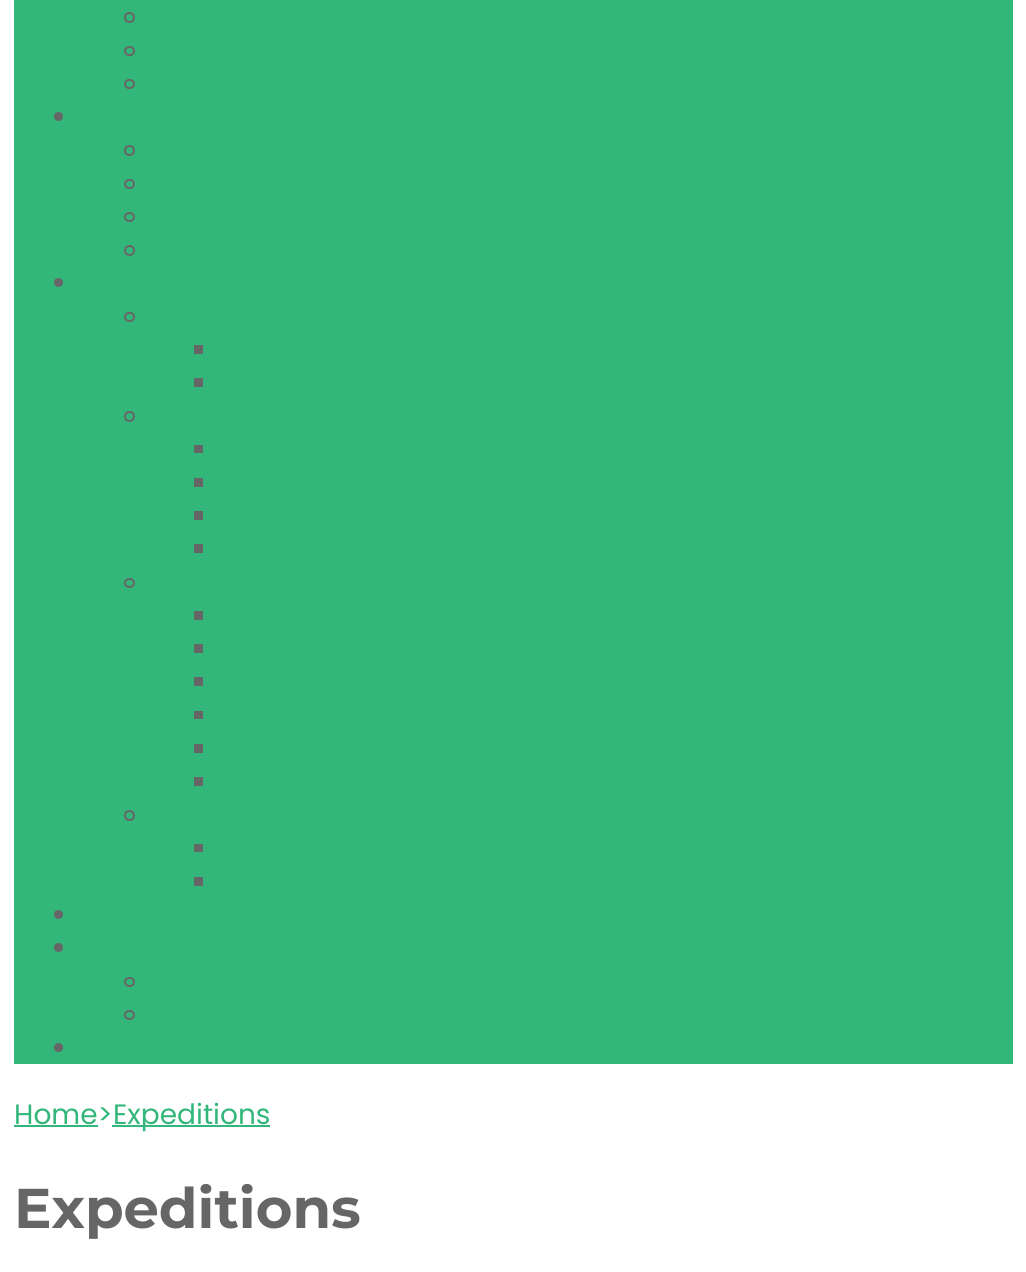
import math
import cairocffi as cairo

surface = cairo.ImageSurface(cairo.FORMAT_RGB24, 1026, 1272)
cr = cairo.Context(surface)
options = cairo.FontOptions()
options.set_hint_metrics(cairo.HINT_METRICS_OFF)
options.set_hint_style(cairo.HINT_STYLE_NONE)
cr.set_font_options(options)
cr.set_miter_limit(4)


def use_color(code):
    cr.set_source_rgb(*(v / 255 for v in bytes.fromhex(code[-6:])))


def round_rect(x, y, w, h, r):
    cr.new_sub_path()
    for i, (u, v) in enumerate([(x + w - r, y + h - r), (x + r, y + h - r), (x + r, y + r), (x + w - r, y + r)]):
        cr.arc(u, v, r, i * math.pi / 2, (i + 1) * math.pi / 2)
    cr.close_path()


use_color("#ffffff")
cr.paint()
use_color("#32b67a")
cr.rectangle(14, 0, 999, 1064)
cr.fill()
cr.arc(129.5, 17.5, 4.5, 0, 2 * math.pi)
use_color("#666666")
cr.stroke()
round_rect(125, 47, 9, 8, 4)
cr.stroke()
round_rect(125, 80, 9, 8, 4)
cr.stroke()
cr.arc(58.5, 116.5, 4.5, 0, 2 * math.pi)
cr.fill()
cr.arc(129.5, 150.5, 4.5, 0, 2 * math.pi)
cr.stroke()
round_rect(125, 180, 9, 8, 4)
cr.stroke()
round_rect(125, 213, 9, 8, 4)
cr.stroke()
cr.arc(129.5, 250.5, 4.5, 0, 2 * math.pi)
cr.stroke()
cr.arc(58.5, 282.5, 4.5, 0, 2 * math.pi)
cr.fill()
round_rect(125, 313, 9, 8, 4)
cr.stroke()
cr.rectangle(194, 345, 9, 9)
cr.fill()
cr.rectangle(194, 378, 9, 9)
cr.fill()
cr.arc(129.5, 416.5, 4.5, 0, 2 * math.pi)
cr.stroke()
cr.rectangle(194, 445, 9, 8)
cr.fill()
cr.rectangle(194, 478, 9, 9)
cr.fill()
cr.rectangle(194, 511, 9, 9)
cr.fill()
cr.rectangle(194, 544, 9, 9)
cr.fill()
round_rect(125, 579, 9, 8, 4)
cr.stroke()
cr.rectangle(194, 611, 9, 9)
cr.fill()
cr.rectangle(194, 644, 9, 9)
cr.fill()
cr.rectangle(194, 677, 9, 9)
cr.fill()
cr.rectangle(194, 711, 9, 8)
cr.fill()
cr.rectangle(194, 744, 9, 9)
cr.fill()
cr.rectangle(194, 777, 9, 9)
cr.fill()
cr.arc(129.5, 815.5, 4.5, 0, 2 * math.pi)
cr.stroke()
cr.rectangle(194, 844, 9, 8)
cr.fill()
cr.rectangle(194, 877, 9, 9)
cr.fill()
cr.arc(58.5, 914.5, 4.5, 0, 2 * math.pi)
cr.fill()
cr.arc(58.5, 947.5, 4.5, 0, 2 * math.pi)
cr.fill()
round_rect(125, 978, 9, 8, 4)
cr.stroke()
round_rect(125, 1011, 9, 8, 4)
cr.stroke()
cr.arc(58.5, 1047.5, 4.5, 0, 2 * math.pi)
cr.fill()
cr.select_font_face("Poppins")
cr.set_font_size(28)
use_color("#32b67a")
cr.move_to(14, 1124)
cr.show_text("Home>")
cr.rectangle(14, 1125, 84, 2)
cr.fill()
cr.rectangle(112, 1125, 158, 2)
cr.fill()
cr.move_to(113, 1124)
cr.show_text("Expeditions")
cr.select_font_face("Montserrat", cairo.FONT_SLANT_NORMAL, cairo.FONT_WEIGHT_BOLD)
cr.set_font_size(56)
use_color("#666666")
cr.move_to(14, 1228)
cr.show_text("Expeditions")
surface.write_to_png("result.png")
